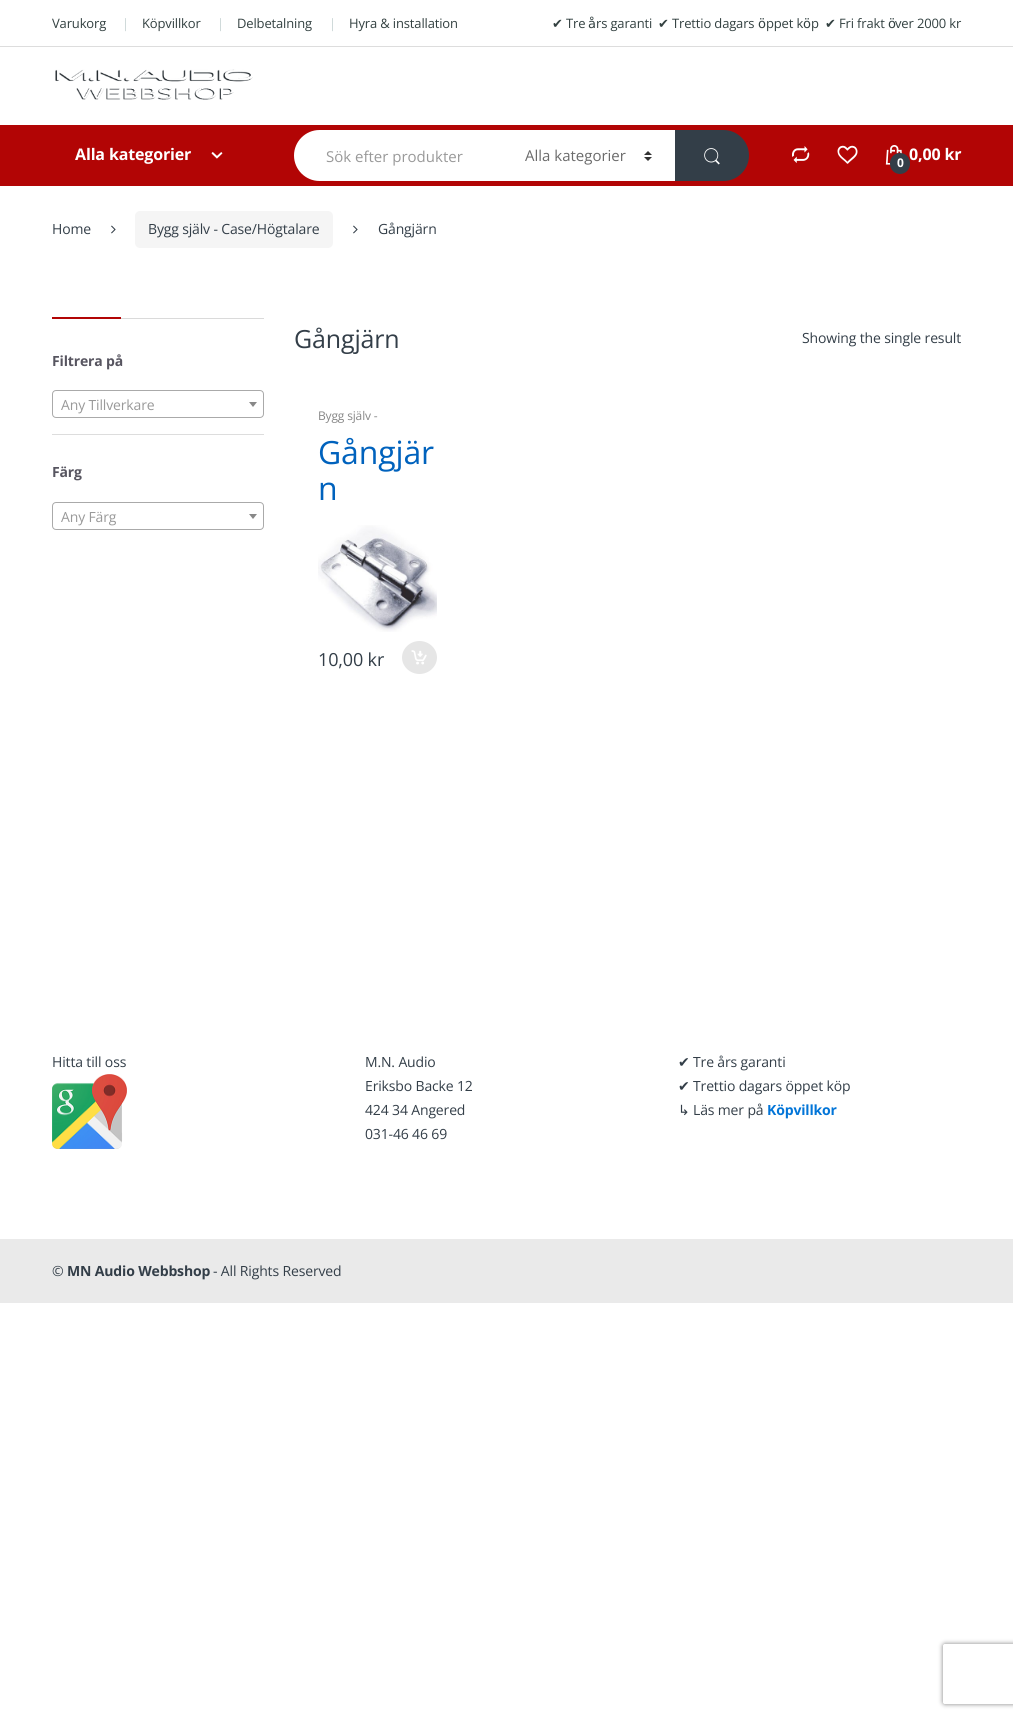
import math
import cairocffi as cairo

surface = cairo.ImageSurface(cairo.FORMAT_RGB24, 1013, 1718)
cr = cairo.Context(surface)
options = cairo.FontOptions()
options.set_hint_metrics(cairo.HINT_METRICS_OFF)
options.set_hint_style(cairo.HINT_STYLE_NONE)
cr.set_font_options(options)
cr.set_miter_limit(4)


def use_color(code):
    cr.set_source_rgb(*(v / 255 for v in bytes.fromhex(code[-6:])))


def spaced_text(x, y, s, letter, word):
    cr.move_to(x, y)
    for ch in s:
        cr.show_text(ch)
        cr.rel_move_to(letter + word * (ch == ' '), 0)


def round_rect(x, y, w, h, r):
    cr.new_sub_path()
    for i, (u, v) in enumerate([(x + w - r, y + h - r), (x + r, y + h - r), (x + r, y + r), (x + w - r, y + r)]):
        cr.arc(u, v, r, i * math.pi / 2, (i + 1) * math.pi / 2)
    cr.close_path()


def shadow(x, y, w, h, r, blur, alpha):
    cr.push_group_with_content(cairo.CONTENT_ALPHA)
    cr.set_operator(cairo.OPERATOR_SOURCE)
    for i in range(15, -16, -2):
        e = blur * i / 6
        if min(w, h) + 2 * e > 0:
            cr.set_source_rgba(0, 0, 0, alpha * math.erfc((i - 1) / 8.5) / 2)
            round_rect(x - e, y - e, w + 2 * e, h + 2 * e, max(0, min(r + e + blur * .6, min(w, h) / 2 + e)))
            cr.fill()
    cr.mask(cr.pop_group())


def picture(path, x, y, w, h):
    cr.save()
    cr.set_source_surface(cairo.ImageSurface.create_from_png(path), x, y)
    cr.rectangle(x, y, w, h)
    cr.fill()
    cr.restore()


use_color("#ffffff")
cr.paint()
use_color("#dddddd")
cr.rectangle(0, 46, 1013, 1)
cr.fill()
cr.select_font_face("Open Sans")
cr.set_font_size(13)
use_color("#334141")
spaced_text(52, 28, "Varukorg", -0.15, 0)
use_color("#cad5d5")
spaced_text(122, 28, "|", -0.15, 0)
use_color("#334141")
spaced_text(142, 28, "Köpvillkor", -0.15, 0)
use_color("#cad5d5")
spaced_text(217, 28, "|", -0.15, 0)
use_color("#334141")
spaced_text(237, 28, "Delbetalning", -0.15, 0)
use_color("#cad5d5")
spaced_text(329, 28, "|", -0.15, 0)
use_color("#334141")
spaced_text(349, 28, "Hyra & installation", -0.15, 0)
cr.select_font_face("DejaVu Sans")
spaced_text(552, 28, "✔", -0.15, 0)
cr.select_font_face("Open Sans")
spaced_text(566, 28, "Tre", -0.15, 0)
cr.select_font_face("DejaVu Sans")
spaced_text(588, 28, "å", -0.15, 0)
cr.select_font_face("Open Sans")
spaced_text(596, 28, "rs garanti", -0.15, 0)
cr.select_font_face("DejaVu Sans")
spaced_text(658, 28, "✔", -0.15, 0)
cr.select_font_face("Open Sans")
spaced_text(672, 28, "Trettio dagars", -0.15, 0)
cr.select_font_face("DejaVu Sans")
spaced_text(758, 28, "ö", -0.15, 0)
cr.select_font_face("Open Sans")
spaced_text(766, 28, "ppet k", -0.15, 0)
cr.select_font_face("DejaVu Sans")
spaced_text(803, 28, "ö", -0.15, 0)
cr.select_font_face("Open Sans")
spaced_text(811, 28, "p", -0.15, 0)
cr.select_font_face("DejaVu Sans")
spaced_text(825, 28, "✔", -0.15, 0)
cr.select_font_face("Open Sans")
spaced_text(839, 28, "Fri frakt", -0.15, 0)
cr.select_font_face("DejaVu Sans")
spaced_text(888, 28, "ö", -0.15, 0)
cr.select_font_face("Open Sans")
spaced_text(895, 28, "ver 2000 kr", -0.15, 0)
picture("img1.png", 55, 69, 198, 31)
use_color("#b20505")
cr.rectangle(0, 125, 1013, 61)
cr.fill()
cr.select_font_face("Open Sans", cairo.FONT_SLANT_NORMAL, cairo.FONT_WEIGHT_BOLD)
cr.set_font_size(16)
use_color("#ffffff")
spaced_text(75, 160, "Alla kategorier", -0.15, 0)
picture("img2.png", 211, 152, 12, 7)
cr.new_path()
cr.move_to(319.5, 130)
cr.line_to(501, 130)
cr.line_to(501, 181)
cr.line_to(319.5, 181)
cr.curve_to(305.5, 181, 294, 169.5, 294, 155.5)
cr.curve_to(294, 141.5, 305.5, 130, 319.5, 130)
cr.close_path()
cr.fill()
cr.select_font_face("Open Sans")
cr.set_font_size(15)
use_color("#999999")
cr.move_to(326, 162)
cr.show_text("Sök efter produkter")
use_color("#ffffff")
cr.rectangle(501, 130, 174, 51)
cr.fill()
picture("img3.png", 644, 151, 8, 10)
use_color("#6b6b6b")
cr.move_to(525, 161)
cr.show_text("Alla kategorier")
use_color("#333e48")
cr.new_path()
cr.move_to(675, 130)
cr.line_to(723.5, 130)
cr.curve_to(737.5, 130, 749, 141.5, 749, 155.5)
cr.curve_to(749, 169.5, 737.5, 181, 723.5, 181)
cr.line_to(675, 181)
cr.close_path()
cr.fill()
picture("img4.png", 704, 148, 16, 17)
picture("img5.png", 792, 146, 18, 17)
picture("img6.png", 837, 145, 21, 19)
picture("img7.png", 885, 145, 17, 20)
cr.select_font_face("Open Sans", cairo.FONT_SLANT_NORMAL, cairo.FONT_WEIGHT_BOLD)
cr.set_font_size(16)
use_color("#ffffff")
spaced_text(909, 160, "0,00 kr", -0.15, 0)
use_color("#333e48")
round_rect(890, 153, 20, 21, 10)
cr.fill()
cr.set_font_size(12)
use_color("#ffffff")
spaced_text(897, 167, "0", -0.15, 0)
cr.select_font_face("Open Sans")
cr.set_font_size(14)
use_color("#333e48")
spaced_text(52, 234, "Home", -0.15, 0)
picture("img8.png", 111, 225, 5, 9)
use_color("#f5f5f5")
round_rect(135, 211, 198, 37, 5)
cr.fill()
use_color("#333e48")
spaced_text(148, 234, "Bygg själv - Case/Högtalare", -0.15, 0)
picture("img8.png", 353, 225, 5, 9)
spaced_text(378, 234, "Gångjärn", -0.15, 0)
use_color("#dadada")
cr.rectangle(121, 318, 143, 1)
cr.fill()
use_color("#b20505")
cr.rectangle(52, 317, 69, 2)
cr.fill()
cr.select_font_face("Open Sans", cairo.FONT_SLANT_NORMAL, cairo.FONT_WEIGHT_BOLD)
use_color("#575560")
spaced_text(52, 366, "Filtrera på", -0.15, 0)
round_rect(52.5, 390.5, 211, 27, 3.5)
use_color("#aaaaaa")
cr.set_line_width(1)
cr.stroke()
cr.select_font_face("Open Sans")
use_color("#999999")
spaced_text(61, 410, "Any Tillverkare", -0.15, 0)
use_color("#888888")
cr.new_path()
cr.move_to(249, 402)
cr.line_to(257, 402)
cr.line_to(253, 407)
cr.close_path()
cr.fill()
use_color("#dddddd")
cr.rectangle(52, 434, 212, 1)
cr.fill()
cr.select_font_face("Open Sans", cairo.FONT_SLANT_NORMAL, cairo.FONT_WEIGHT_BOLD)
use_color("#575560")
spaced_text(52, 477, "Färg", -0.15, 0)
round_rect(52.5, 502.5, 211, 27, 3.5)
use_color("#aaaaaa")
cr.stroke()
cr.select_font_face("Open Sans")
use_color("#999999")
spaced_text(61, 522, "Any Färg", -0.15, 0)
use_color("#888888")
cr.new_path()
cr.move_to(249, 514)
cr.line_to(257, 514)
cr.line_to(253, 519)
cr.close_path()
cr.fill()
cr.set_font_size(25)
use_color("#333e48")
spaced_text(294, 348, "Gångjärn", -0.15, 0)
cr.set_font_size(14)
spaced_text(802, 343, "Showing the single result", -0.15, 0)
cr.set_font_size(12)
use_color("#878787")
spaced_text(318, 420, "Bygg själv -", -0.15, 0)
cr.set_font_size(32)
use_color("#0062bd")
spaced_text(318, 464, "Gångjär", -0.15, 0)
spaced_text(318, 500, "n", -0.15, 0)
picture("img9.png", 318, 525, 119, 107)
cr.set_font_size(18)
use_color("#333e48")
spaced_text(318, 666, "10,00 kr", -0.15, 0)
use_color("#e6e6e6")
cr.new_path()
cr.move_to(419.5, 641)
cr.curve_to(429, 641, 437, 648.5, 437, 657.5)
cr.curve_to(437, 666.5, 429, 674, 419.5, 674)
cr.curve_to(410, 674, 402, 666.5, 402, 657.5)
cr.curve_to(402, 648.5, 410, 641, 419.5, 641)
cr.close_path()
cr.fill()
picture("img10.png", 411, 650, 16, 15)
cr.set_font_size(14)
use_color("#333e48")
spaced_text(52, 1067, "Hitta till oss", -0.15, 0)
picture("img11.png", 52, 1074, 75, 75)
spaced_text(365, 1067, "M.N. Audio", -0.15, 0)
spaced_text(365, 1091, "Eriksbo Backe 12", -0.15, 0)
spaced_text(365, 1115, "424 34 Angered", -0.15, 0)
spaced_text(365, 1139, "031-46 46 69", -0.15, 0)
cr.select_font_face("DejaVu Sans")
spaced_text(678, 1067, "✔", -0.15, 0)
cr.select_font_face("Open Sans")
spaced_text(693, 1067, "Tre års garanti", -0.15, 0)
cr.select_font_face("DejaVu Sans")
spaced_text(678, 1091, "✔", -0.15, 0)
cr.select_font_face("Open Sans")
spaced_text(693, 1091, "Trettio dagars öppet köp", -0.15, 0)
cr.select_font_face("DejaVu Sans")
spaced_text(678, 1115, "↳", -0.15, 0)
cr.select_font_face("Open Sans")
spaced_text(693, 1115, "Läs mer på", -0.15, 0)
cr.select_font_face("Open Sans", cairo.FONT_SLANT_NORMAL, cairo.FONT_WEIGHT_BOLD)
use_color("#0275d8")
spaced_text(767, 1115, "Köpvillkor", -0.15, 0)
use_color("#eaeaea")
cr.rectangle(0, 1239, 1013, 64)
cr.fill()
cr.select_font_face("Open Sans")
use_color("#333e48")
spaced_text(52, 1276, "©", -0.15, 0)
cr.select_font_face("Open Sans", cairo.FONT_SLANT_NORMAL, cairo.FONT_WEIGHT_BOLD)
spaced_text(67, 1276, "MN Audio Webbshop", -0.15, 0)
cr.select_font_face("Open Sans")
spaced_text(213, 1276, "- All Rights Reserved", -0.15, 0)
cr.save()
cr.set_fill_rule(cairo.FILL_RULE_EVEN_ODD)
cr.new_path()
cr.move_to(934, 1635)
cr.line_to(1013, 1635)
cr.line_to(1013, 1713)
cr.line_to(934, 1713)
cr.close_path()
cr.move_to(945, 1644)
cr.line_to(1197, 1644)
cr.curve_to(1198, 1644, 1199, 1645, 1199, 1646)
cr.line_to(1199, 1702)
cr.curve_to(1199, 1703, 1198, 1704, 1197, 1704)
cr.line_to(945, 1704)
cr.curve_to(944, 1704, 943, 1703, 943, 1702)
cr.line_to(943, 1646)
cr.curve_to(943, 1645, 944, 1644, 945, 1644)
cr.close_path()
cr.clip()
use_color("#808080")
shadow(943, 1644, 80, 60, 2, 2.5, 1)
cr.restore()
surface.write_to_png("result.png")
